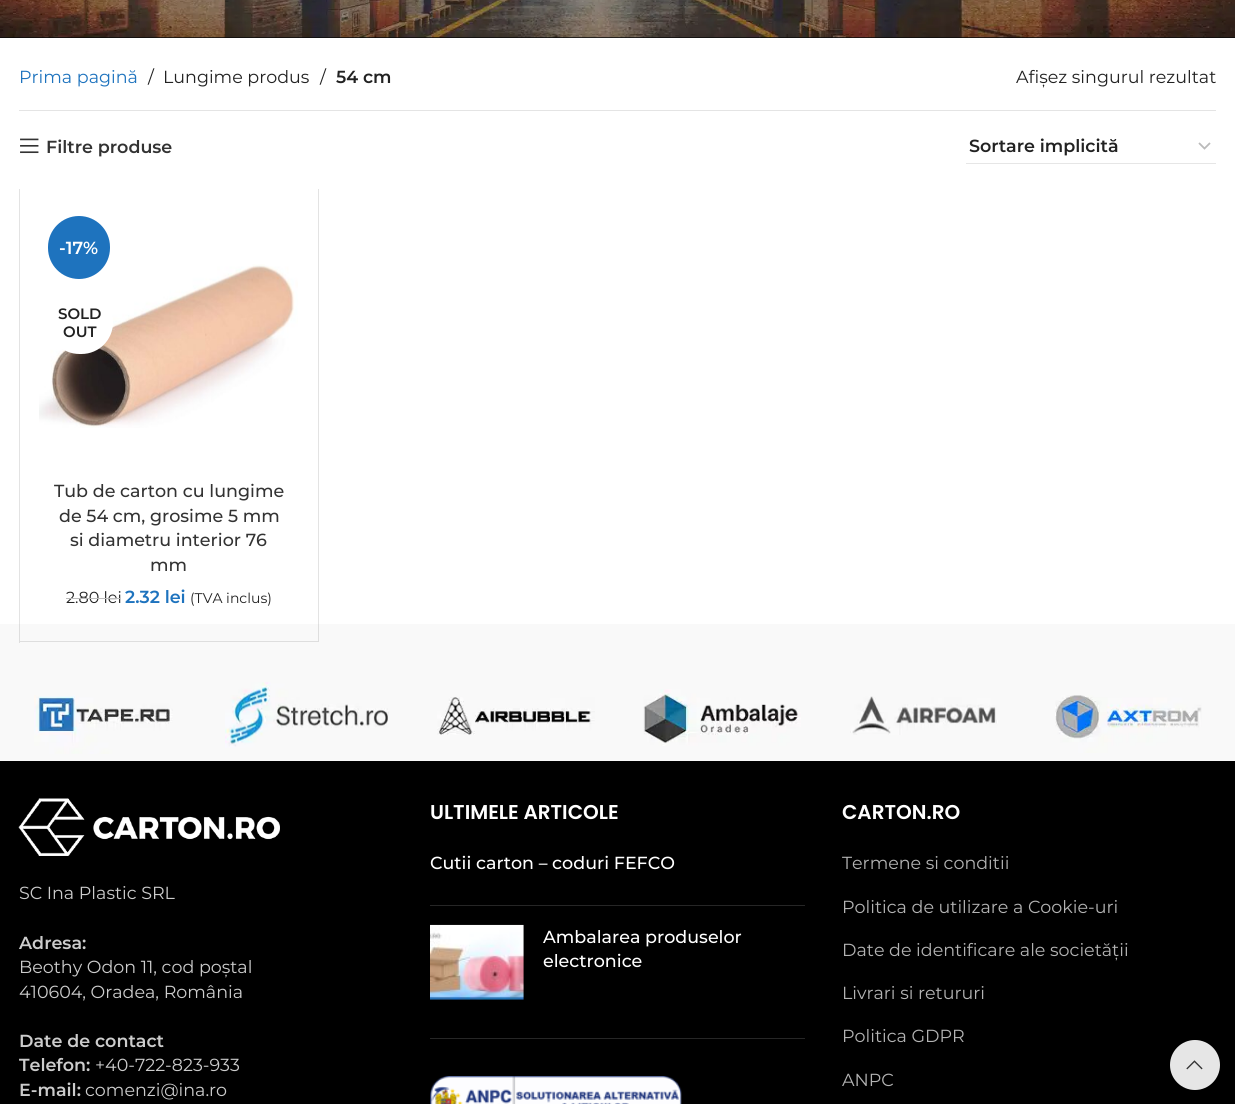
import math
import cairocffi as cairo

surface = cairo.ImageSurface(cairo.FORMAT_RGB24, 1235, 1104)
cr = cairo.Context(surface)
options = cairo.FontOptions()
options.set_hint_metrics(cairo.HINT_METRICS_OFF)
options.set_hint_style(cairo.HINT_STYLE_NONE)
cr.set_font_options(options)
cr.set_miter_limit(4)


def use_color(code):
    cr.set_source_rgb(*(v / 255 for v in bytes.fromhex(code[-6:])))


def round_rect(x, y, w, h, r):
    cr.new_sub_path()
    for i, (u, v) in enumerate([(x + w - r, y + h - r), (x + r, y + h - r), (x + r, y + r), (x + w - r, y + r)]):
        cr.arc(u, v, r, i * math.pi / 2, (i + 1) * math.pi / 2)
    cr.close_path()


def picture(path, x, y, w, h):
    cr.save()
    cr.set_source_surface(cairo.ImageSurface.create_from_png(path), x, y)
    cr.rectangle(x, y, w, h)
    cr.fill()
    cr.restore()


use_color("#ffffff")
cr.paint()
use_color("#e3e3e3")
cr.rectangle(19, 189, 1, 435)
cr.fill()
use_color("#0a0a0a")
cr.rectangle(0, 37, 1235, 1)
cr.fill()
picture("img1.png", 0, 0, 1235, 38)
use_color("#e4e4e4")
cr.rectangle(19, 110, 1197, 1)
cr.fill()
cr.select_font_face("Montserrat")
cr.set_font_size(17.5)
use_color("#1e73be")
cr.move_to(19, 83)
cr.show_text("Prima pagină")
use_color("#222222")
cr.move_to(148, 83)
cr.show_text("/")
cr.move_to(163, 83)
cr.show_text("Lungime produs")
cr.move_to(320, 83)
cr.show_text("/")
cr.select_font_face("Montserrat SemiBold")
cr.move_to(336, 83)
cr.show_text("54 cm")
cr.select_font_face("Montserrat")
cr.move_to(1016, 83)
cr.show_text("Afișez singurul rezultat")
picture("img2.png", 20, 138, 19, 16)
cr.select_font_face("Montserrat SemiBold")
use_color("#333333")
cr.move_to(46, 153)
cr.show_text("Filtre produse")
cr.new_path()
cr.move_to(1199, 143)
cr.line_to(1204.5, 148.5)
cr.line_to(1210, 143)
use_color("#bbbbbb")
cr.set_line_width(1.8)
cr.stroke()
use_color("#e6e6e6")
cr.rectangle(966, 163, 250, 1)
cr.fill()
use_color("#222222")
cr.move_to(969, 152)
cr.show_text("Sortare implicită")
use_color("#f9f9f9")
cr.rectangle(0, 624, 1235, 137)
cr.fill()
cr.set_source_rgba(0, 0, 0, 0.11)
cr.new_path()
cr.move_to(319, 189)
cr.line_to(319, 642)
cr.line_to(318, 641)
cr.line_to(318, 189)
cr.close_path()
cr.fill()
cr.new_path()
cr.move_to(319, 642)
cr.line_to(20, 642)
cr.line_to(20, 641)
cr.line_to(318, 641)
cr.close_path()
cr.fill()
picture("img3.png", 39, 264, 259, 164)
use_color("#1e73be")
round_rect(48, 216, 62, 63, 31)
cr.fill()
use_color("#ffffff")
cr.move_to(59, 254)
cr.show_text("-17%")
round_rect(48, 291, 65, 63, 31.5)
cr.fill()
cr.set_font_size(15)
use_color("#222222")
cr.move_to(58, 319)
cr.show_text("SOLD")
cr.move_to(63, 337)
cr.show_text("OUT")
cr.select_font_face("Montserrat Medium")
cr.set_font_size(17.5)
use_color("#333333")
cr.move_to(54, 497)
cr.show_text("Tub de carton cu lungime")
cr.move_to(59, 522)
cr.show_text("de 54 cm, grosime 5 mm")
cr.move_to(70, 546)
cr.show_text("si diametru interior 76")
cr.move_to(150, 571)
cr.show_text("mm")
cr.select_font_face("Montserrat")
cr.set_font_size(16)
use_color("#222222")
cr.move_to(66, 603)
cr.show_text("2.80 lei")
use_color("#bbbbbb")
cr.rectangle(66, 598, 54, 1)
cr.fill()
cr.select_font_face("Montserrat SemiBold")
cr.set_font_size(17.5)
use_color("#1e73be")
cr.move_to(125, 603)
cr.show_text("2.32 lei")
cr.select_font_face("Montserrat")
cr.set_font_size(14)
use_color("#222222")
cr.move_to(190, 603)
cr.show_text("(TVA inclus)")
use_color("#dedede")
cr.rectangle(19, 624, 1, 19)
cr.fill()
picture("img4.png", 34, 695, 139, 59)
picture("img5.png", 225, 682, 164, 66)
picture("img6.png", 437, 697, 158, 38)
picture("img7.png", 643, 689, 158, 57)
picture("img8.png", 850, 696, 148, 39)
picture("img9.png", 1055, 695, 147, 58)
use_color("#000000")
cr.rectangle(0, 761, 1235, 343)
cr.fill()
picture("img10.png", 18, 798, 262, 58)
cr.set_font_size(17.5)
use_color("#cccccc")
cr.move_to(19, 899)
cr.show_text("SC Ina Plastic SRL")
cr.select_font_face("Montserrat SemiBold")
cr.move_to(19, 949)
cr.show_text("Adresa:")
cr.select_font_face("Montserrat")
cr.move_to(19, 973)
cr.show_text("Beothy Odon 11, cod poștal")
cr.move_to(19, 998)
cr.show_text("410604, Oradea, România")
cr.select_font_face("Montserrat SemiBold")
cr.move_to(19, 1047)
cr.show_text("Date de contact")
cr.move_to(19, 1071)
cr.show_text("Telefon:")
cr.select_font_face("Montserrat")
cr.move_to(95, 1071)
cr.show_text("+40-722-823-933")
cr.select_font_face("Montserrat SemiBold")
cr.move_to(19, 1096)
cr.show_text("E-mail:")
cr.select_font_face("Montserrat")
cr.move_to(85, 1096)
cr.show_text("comenzi@ina.ro")
use_color("#262626")
cr.rectangle(430, 1038, 375, 1)
cr.fill()
cr.select_font_face("Poppins SemiBold")
cr.set_font_size(20)
use_color("#ffffff")
cr.move_to(430, 819)
cr.show_text("ULTIMELE ARTICOLE")
use_color("#262626")
cr.rectangle(430, 905, 375, 1)
cr.fill()
cr.select_font_face("Montserrat Medium")
cr.set_font_size(17.5)
use_color("#ffffff")
cr.move_to(430, 869)
cr.show_text("Cutii carton – coduri FEFCO")
picture("img11.png", 430, 924, 94, 76)
cr.move_to(543, 943)
cr.show_text("Ambalarea produselor")
cr.move_to(543, 967)
cr.show_text("electronice")
picture("img12.png", 430, 1076, 252, 28)
cr.select_font_face("Poppins SemiBold")
cr.set_font_size(20)
cr.move_to(842, 819)
cr.show_text("CARTON.RO")
cr.select_font_face("Montserrat")
cr.set_font_size(17.5)
use_color("#b3b3b3")
cr.move_to(842, 869)
cr.show_text("Termene si conditii")
cr.move_to(842, 913)
cr.show_text("Politica de utilizare a Cookie-uri")
cr.move_to(842, 956)
cr.show_text("Date de identificare ale societății")
cr.move_to(842, 999)
cr.show_text("Livrari si retururi")
cr.move_to(842, 1042)
cr.show_text("Politica GDPR")
cr.move_to(842, 1086)
cr.show_text("ANPC")
use_color("#e6e6e6")
cr.new_path()
cr.arc(1195, 1065, 25, 0, 2 * math.pi)
cr.fill()
picture("img13.png", 1186, 1060, 17, 10)
surface.write_to_png("result.png")
